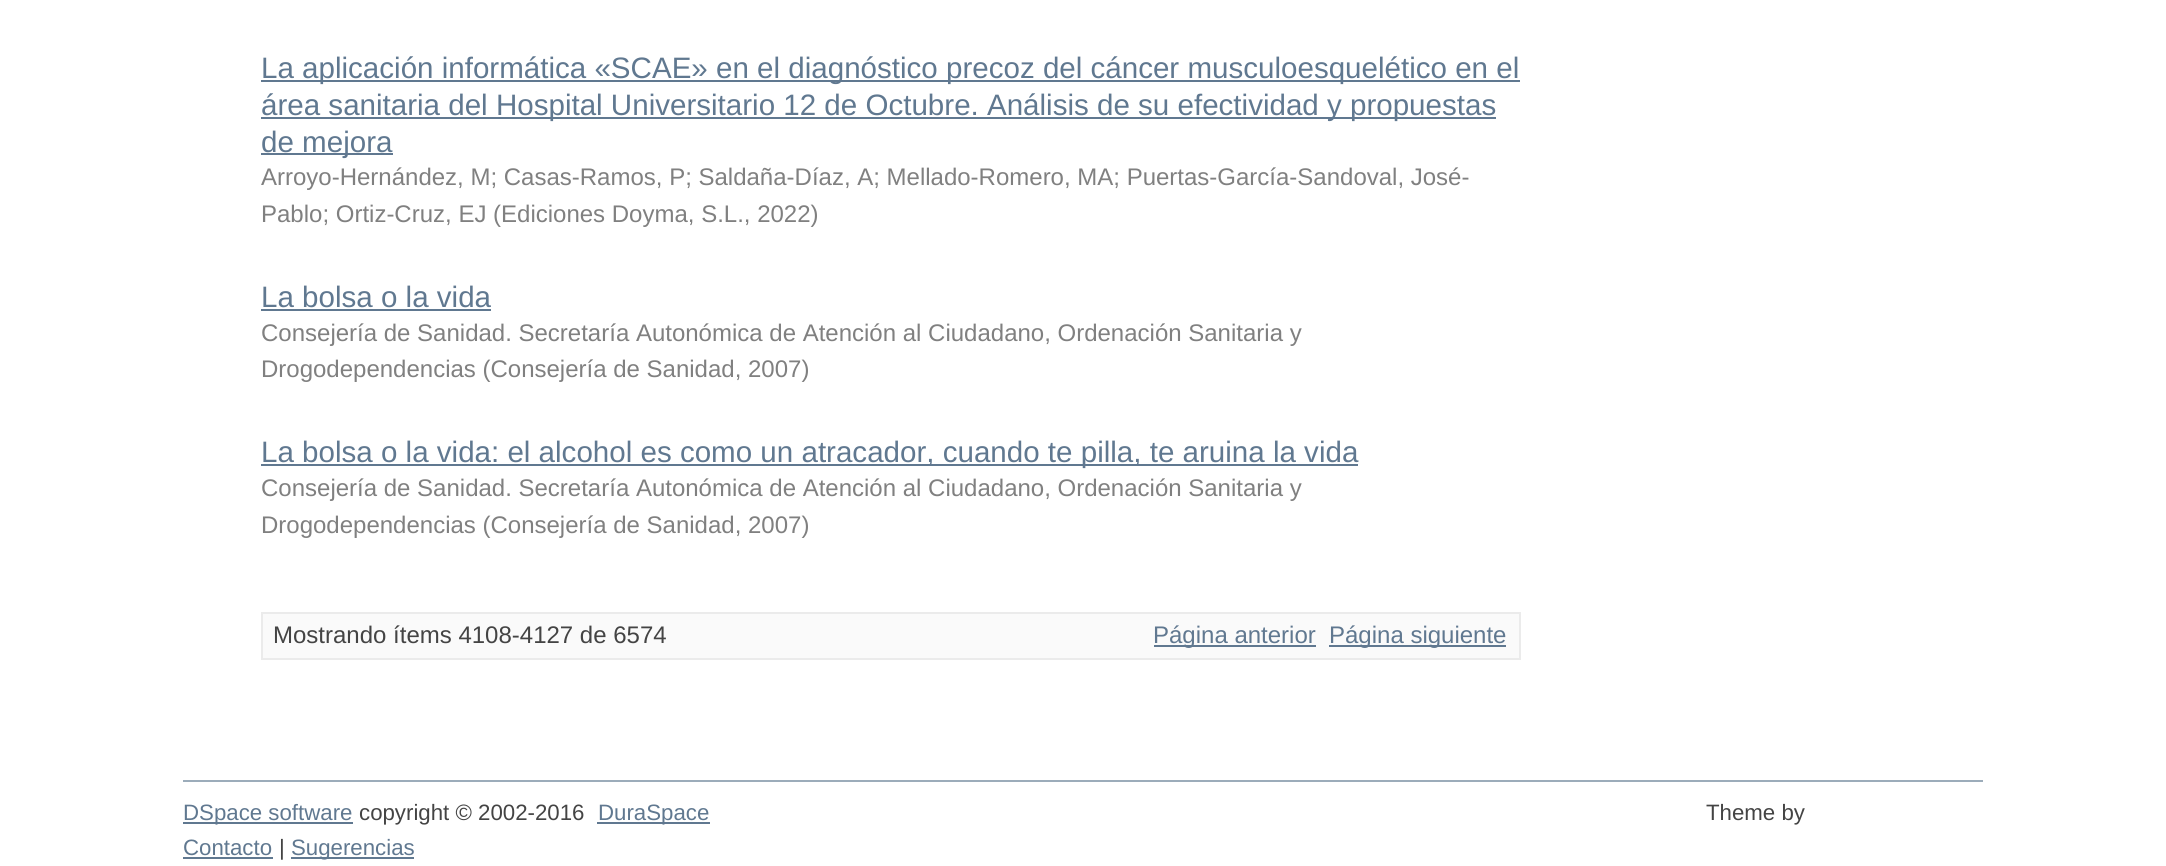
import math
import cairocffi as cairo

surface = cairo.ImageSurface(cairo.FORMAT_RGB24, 2166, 866)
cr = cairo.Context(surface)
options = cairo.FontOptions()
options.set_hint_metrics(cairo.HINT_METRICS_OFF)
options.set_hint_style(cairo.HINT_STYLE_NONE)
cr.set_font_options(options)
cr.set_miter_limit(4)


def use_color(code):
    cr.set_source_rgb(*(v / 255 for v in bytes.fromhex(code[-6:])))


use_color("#ffffff")
cr.paint()
use_color("#607890")
cr.rectangle(261, 80, 1259, 2)
cr.fill()
cr.select_font_face("Liberation Sans")
cr.set_font_size(29.55)
cr.move_to(261, 78)
cr.show_text("La aplicación informática «SCAE» en el diagnóstico precoz del cáncer musculoesquelético en el")
cr.rectangle(261, 117, 1235, 2)
cr.fill()
cr.move_to(261, 115)
cr.show_text("área sanitaria del Hospital Universitario 12 de Octubre. Análisis de su efectividad y propuestas")
cr.rectangle(261, 153, 132, 2)
cr.fill()
cr.move_to(261, 152)
cr.show_text("de mejora")
cr.set_font_size(24)
use_color("#808080")
cr.move_to(261, 185)
cr.show_text("Arroyo-Hernández, M; Casas-Ramos, P; Saldaña-Díaz, A; Mellado-Romero, MA; Puertas-García-Sandoval, José-")
cr.move_to(261, 222)
cr.show_text("Pablo; Ortiz-Cruz, EJ (Ediciones Doyma, S.L., 2022)")
cr.set_font_size(29.55)
use_color("#607890")
cr.move_to(261, 307)
cr.show_text("La bolsa o la vida")
cr.rectangle(261, 309, 230, 2)
cr.fill()
cr.set_font_size(24)
use_color("#808080")
cr.move_to(261, 341)
cr.show_text("Consejería de Sanidad. Secretaría Autonómica de Atención al Ciudadano, Ordenación Sanitaria y")
cr.move_to(261, 377)
cr.show_text("Drogodependencias (Consejería de Sanidad, 2007)")
use_color("#607890")
cr.rectangle(261, 464, 1097, 2)
cr.fill()
cr.set_font_size(29.55)
cr.move_to(261, 462)
cr.show_text("La bolsa o la vida: el alcohol es como un atracador, cuando te pilla, te aruina la vida")
cr.set_font_size(24)
use_color("#808080")
cr.move_to(261, 496)
cr.show_text("Consejería de Sanidad. Secretaría Autonómica de Atención al Ciudadano, Ordenación Sanitaria y")
cr.move_to(261, 533)
cr.show_text("Drogodependencias (Consejería de Sanidad, 2007)")
use_color("#fafafa")
cr.rectangle(262, 613, 1258, 46)
cr.fill_preserve()
use_color("#ebebeb")
cr.stroke()
use_color("#444444")
cr.move_to(273, 643)
cr.show_text("Mostrando ítems 4108-4127 de 6574")
use_color("#607890")
cr.rectangle(1154, 645, 162, 2)
cr.fill()
cr.move_to(1153, 643)
cr.show_text("Página anterior")
cr.rectangle(1329, 645, 177, 2)
cr.fill()
cr.move_to(1329, 643)
cr.show_text("Página siguiente")
use_color("#9cacba")
cr.rectangle(183, 780, 1800, 2)
cr.fill()
use_color("#607890")
cr.rectangle(183, 822, 170, 2)
cr.fill()
cr.set_font_size(22.25)
cr.move_to(183, 820)
cr.show_text("DSpace software")
use_color("#444444")
cr.move_to(359, 820)
cr.show_text("copyright © 2002-2016")
use_color("#607890")
cr.rectangle(597, 822, 113, 2)
cr.fill()
cr.move_to(598, 820)
cr.show_text("DuraSpace")
use_color("#444444")
cr.move_to(1706, 820)
cr.show_text("Theme by")
use_color("#607890")
cr.move_to(183, 855)
cr.show_text("Contacto")
cr.rectangle(183, 857, 90, 2)
cr.fill()
use_color("#444444")
cr.move_to(279, 855)
cr.show_text("|")
use_color("#607890")
cr.rectangle(291, 857, 123, 2)
cr.fill()
cr.move_to(291, 855)
cr.show_text("Sugerencias")
surface.write_to_png("result.png")
